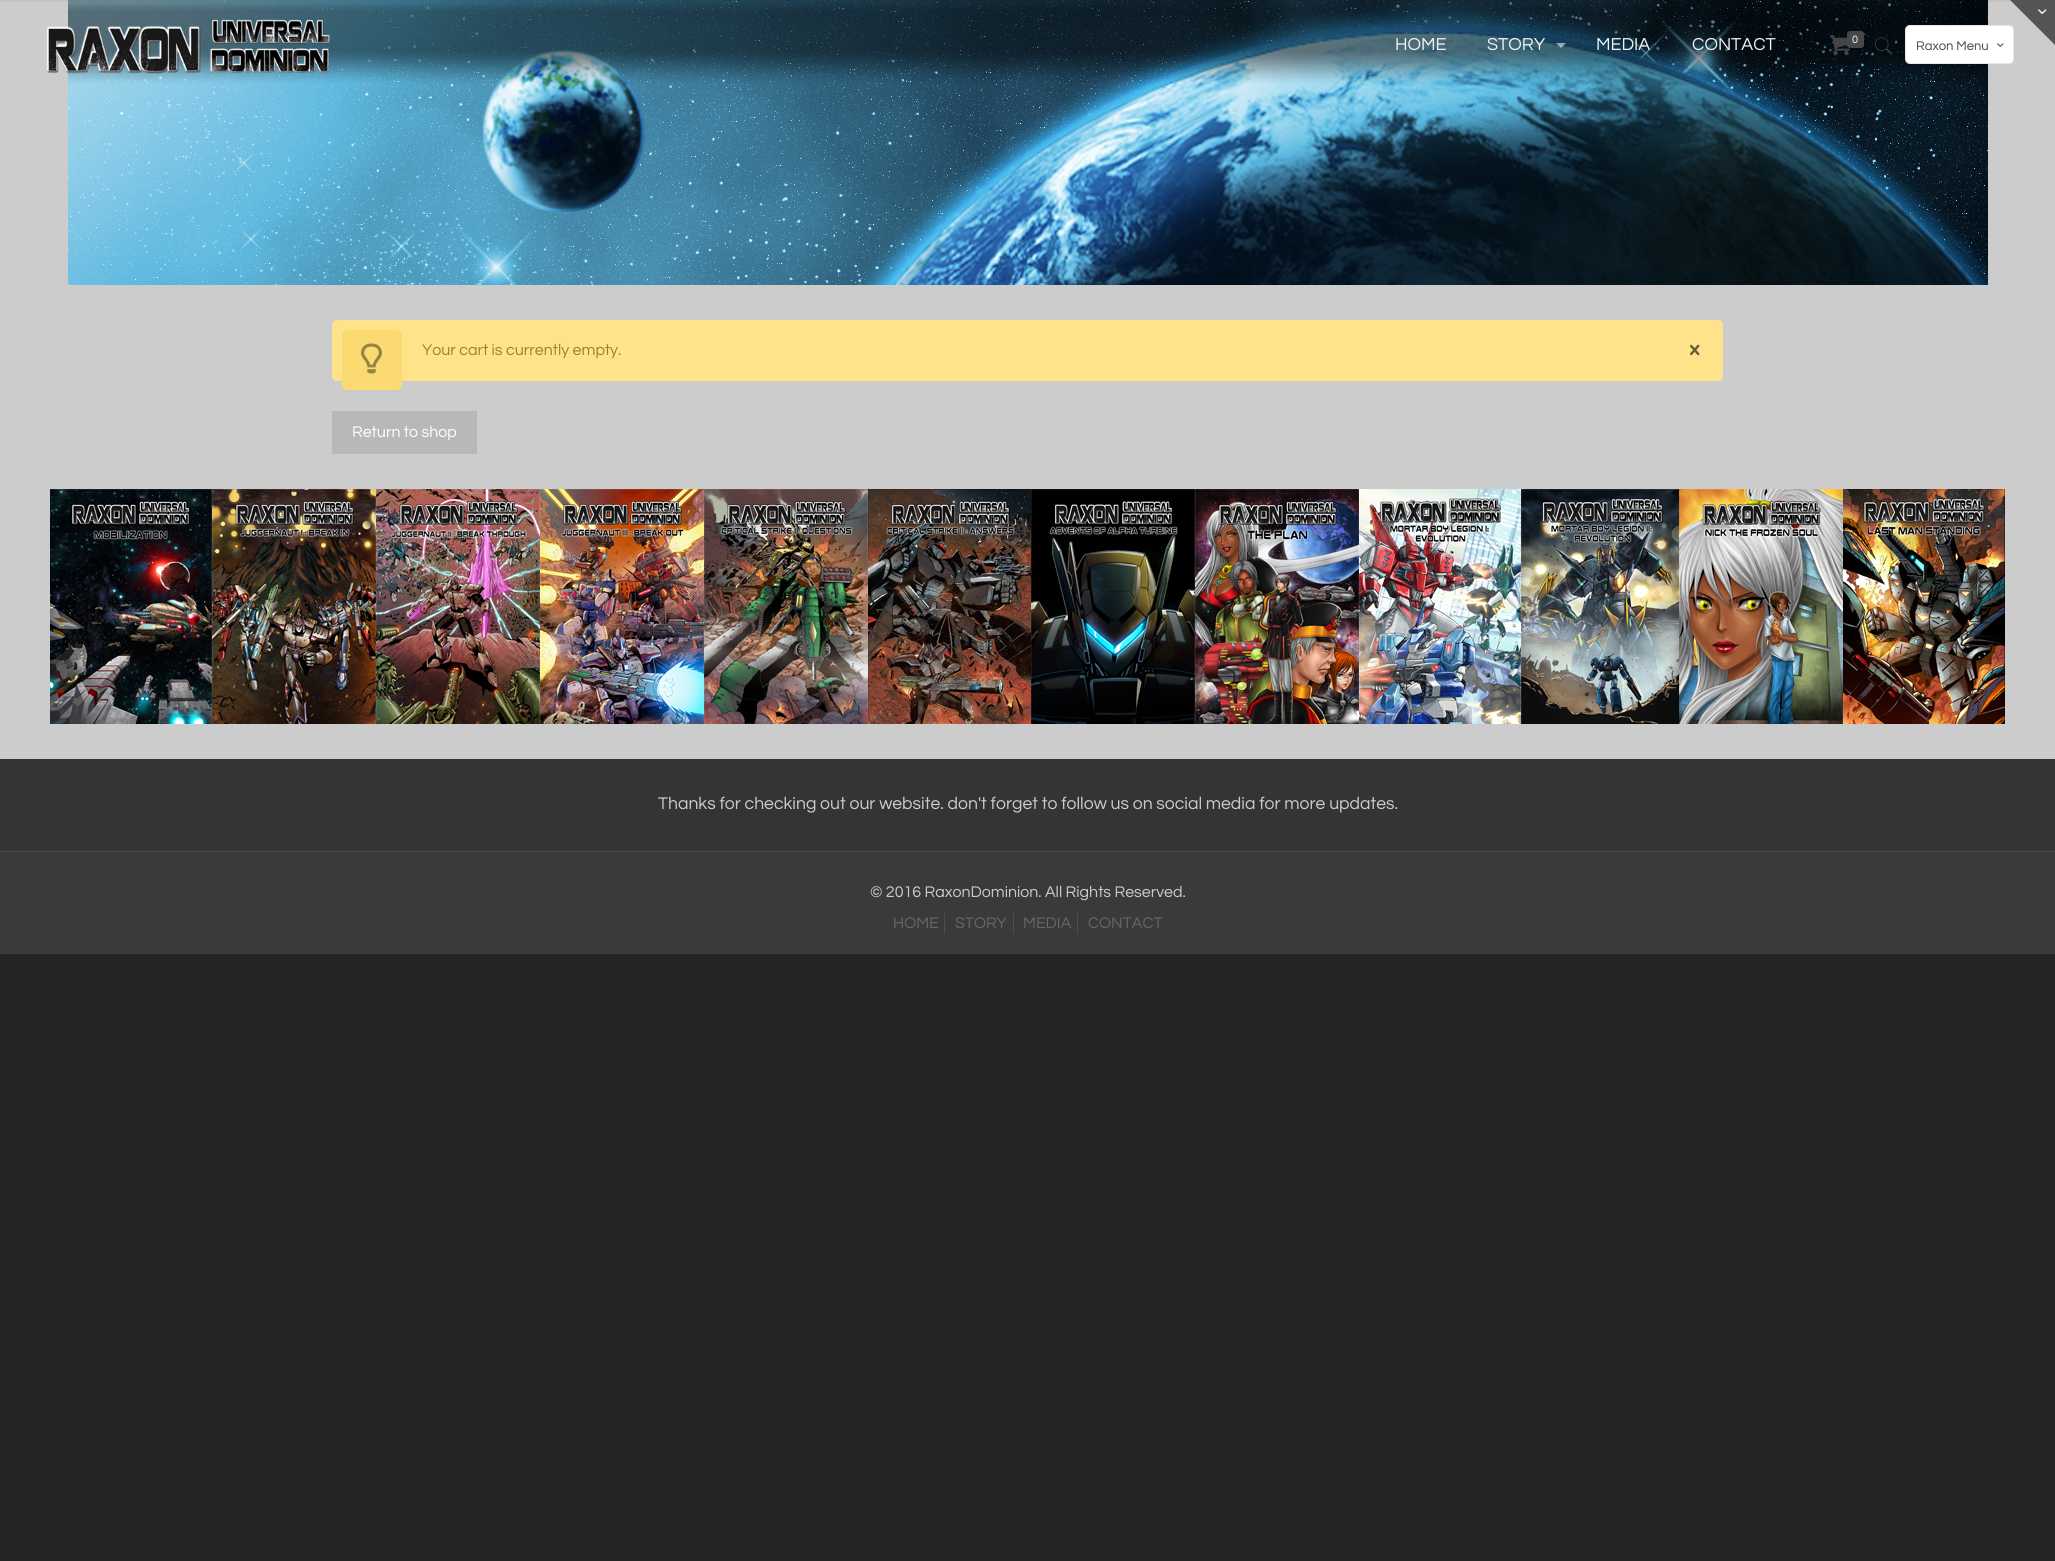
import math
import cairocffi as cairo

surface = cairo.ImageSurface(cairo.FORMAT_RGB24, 2055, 1561)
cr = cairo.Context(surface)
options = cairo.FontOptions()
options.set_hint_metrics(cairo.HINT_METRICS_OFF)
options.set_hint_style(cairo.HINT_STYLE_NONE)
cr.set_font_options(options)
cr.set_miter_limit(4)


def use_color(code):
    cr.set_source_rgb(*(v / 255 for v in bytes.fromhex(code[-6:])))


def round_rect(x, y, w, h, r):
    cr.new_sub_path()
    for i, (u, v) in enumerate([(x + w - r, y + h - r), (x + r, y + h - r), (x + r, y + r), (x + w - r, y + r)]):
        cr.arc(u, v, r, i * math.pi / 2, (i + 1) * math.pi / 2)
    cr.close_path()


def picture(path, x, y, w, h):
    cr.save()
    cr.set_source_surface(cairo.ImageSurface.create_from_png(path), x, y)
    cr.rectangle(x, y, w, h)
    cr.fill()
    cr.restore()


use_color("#242424")
cr.paint()
use_color("#cccccc")
cr.rectangle(0, 0, 2055, 759)
cr.fill()
picture("img7.png", 68, 0, 1920, 285)
picture("img1.png", 0, 0, 2012, 2)
use_color("#ffffff")
round_rect(1905, 25, 109, 39, 5)
cr.fill()
round_rect(1905.5, 25.5, 108, 38, 4.5)
cr.set_source_rgba(0, 0, 0, 0.1)
cr.set_line_width(1)
cr.stroke()
use_color("#545454")
cr.new_path()
cr.move_to(2055, 0)
cr.line_to(2055, 45)
cr.line_to(2010, 0)
cr.close_path()
cr.fill()
picture("img2.png", 2038, 9, 9, 5)
picture("img3.png", 46, 19, 284, 55)
cr.set_source_rgba(0, 0, 0, 0.03)
cr.rectangle(1466, 15, 1, 60)
cr.fill()
cr.select_font_face("Questrial")
cr.set_font_size(18)
use_color("#f2f2f2")
cr.move_to(1395, 50)
cr.show_text("HOME")
cr.set_source_rgba(0, 0, 0, 0.03)
cr.rectangle(1575, 15, 1, 60)
cr.fill()
use_color("#f2f2f2")
cr.move_to(1487, 50)
cr.show_text("STORY")
cr.set_source_rgba(0.949, 0.949, 0.949, 0.6)
cr.new_path()
cr.move_to(1556, 43)
cr.line_to(1566, 43)
cr.line_to(1561, 48)
cr.close_path()
cr.fill()
cr.set_source_rgba(0, 0, 0, 0.03)
cr.rectangle(1671, 58, 1, 17)
cr.fill()
use_color("#f2f2f2")
cr.move_to(1596, 50)
cr.show_text("MEDIA")
cr.move_to(1692, 50)
cr.show_text("CONTACT")
picture("img4.png", 1830, 35, 20, 21)
use_color("#474747")
round_rect(1847, 31, 17, 17, 3)
cr.fill()
cr.set_font_size(11)
use_color("#ffffff")
cr.move_to(1852, 43)
cr.show_text("0")
picture("img5.png", 1875, 37, 17, 18)
cr.set_font_size(13)
use_color("#444444")
cr.move_to(1916, 50)
cr.show_text("Raxon Menu")
picture("img6.png", 1997, 43, 7, 4)
use_color("#ffe38b")
round_rect(332, 320, 1391, 61, 5)
cr.fill()
use_color("#fbda72")
round_rect(342, 330, 60, 60, 5)
cr.fill()
picture("img8.png", 361, 343, 21, 31)
cr.set_font_size(16)
use_color("#9b812e")
cr.move_to(422, 355)
cr.show_text("Your cart is currently empty.")
picture("img9.png", 1690, 344, 10, 12)
use_color("#b8b8b8")
cr.rectangle(332, 411, 145, 43)
cr.fill()
use_color("#ffffff")
cr.move_to(352, 437)
cr.show_text("Return to shop")
picture("img10.png", 50, 489, 1955, 235)
use_color("#3a3a3a")
cr.rectangle(0, 852, 2055, 102)
cr.fill()
use_color("#343434")
cr.rectangle(0, 759, 2055, 92)
cr.fill()
cr.set_font_size(17.6)
use_color("#cccccc")
cr.move_to(658, 809)
cr.show_text("Thanks for checking out our website. don't forget to follow us on social media for more updates.")
use_color("#4e4e4e")
cr.rectangle(0, 851, 2055, 1)
cr.fill()
cr.set_font_size(16)
use_color("#cccccc")
cr.move_to(870, 897)
cr.show_text("© 2016 RaxonDominion. All Rights Reserved.")
use_color("#4e4e4e")
cr.rectangle(944, 913, 1, 21)
cr.fill()
use_color("#65666c")
cr.move_to(893, 928)
cr.show_text("HOME")
use_color("#4e4e4e")
cr.rectangle(1013, 913, 1, 21)
cr.fill()
use_color("#65666c")
cr.move_to(955, 928)
cr.show_text("STORY")
use_color("#4e4e4e")
cr.rectangle(1077, 913, 1, 21)
cr.fill()
use_color("#65666c")
cr.move_to(1023, 928)
cr.show_text("MEDIA")
cr.move_to(1088, 928)
cr.show_text("CONTACT")
surface.write_to_png("result.png")
